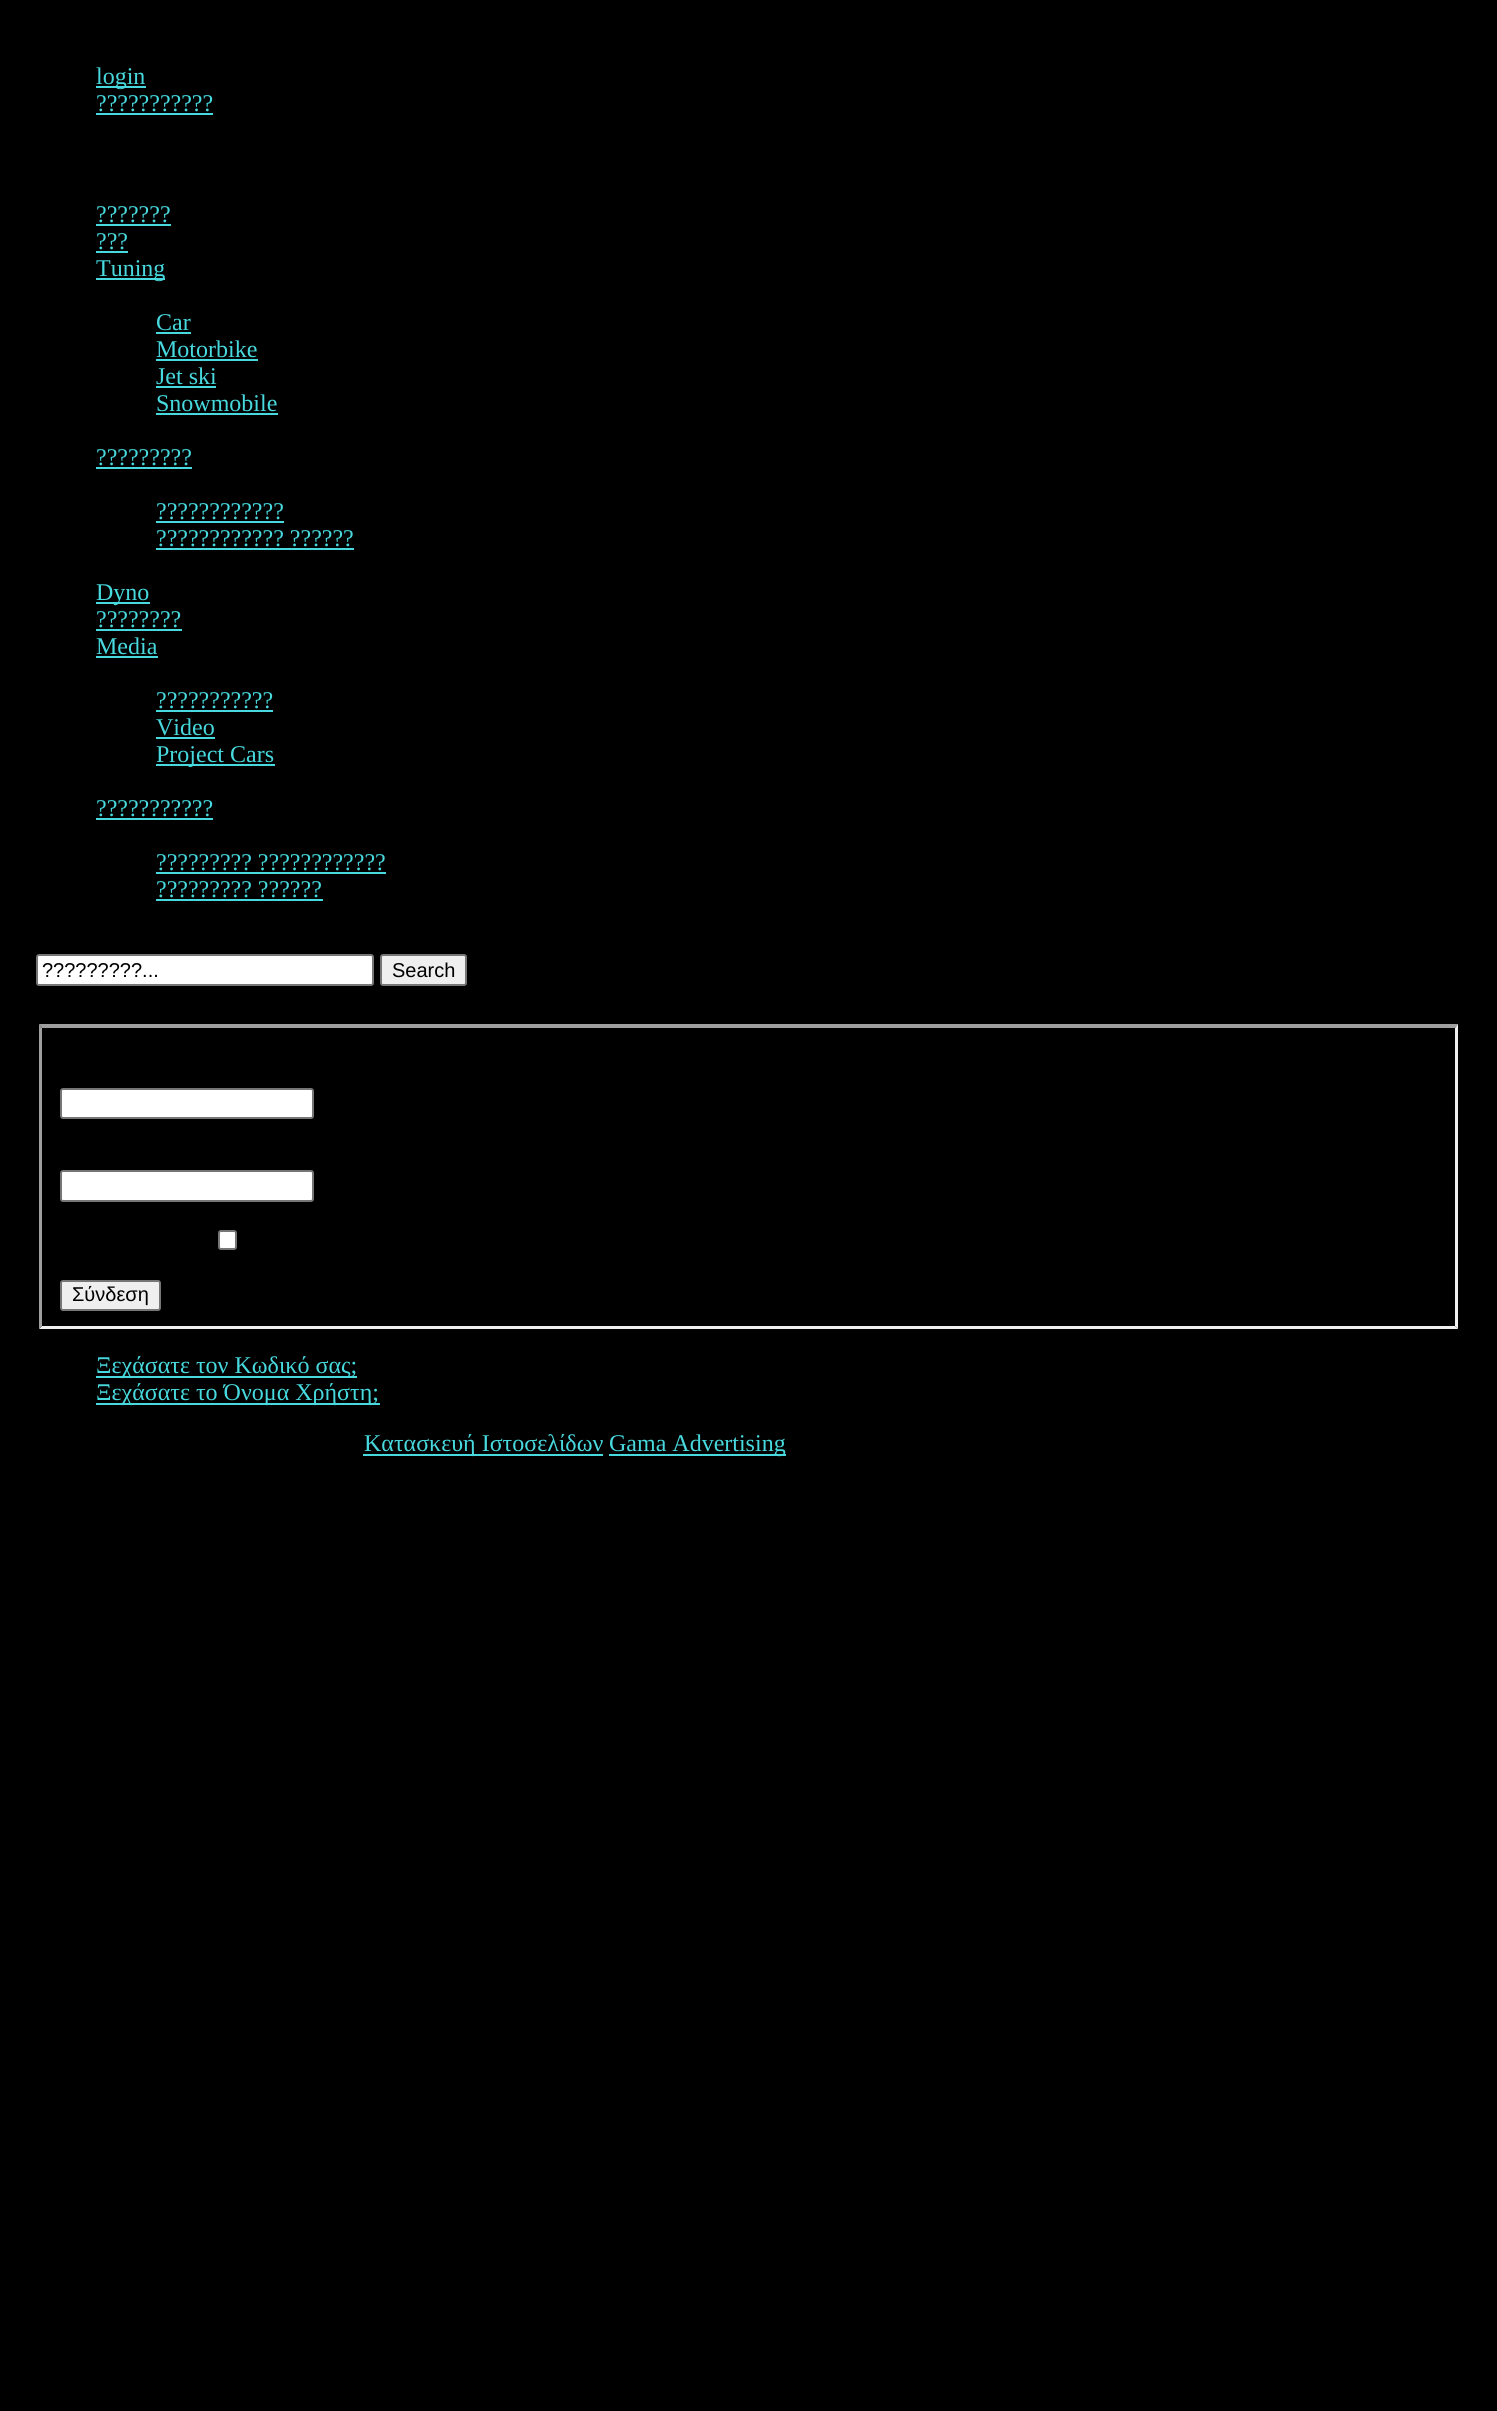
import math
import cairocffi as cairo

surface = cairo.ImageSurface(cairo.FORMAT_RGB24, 1497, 2411)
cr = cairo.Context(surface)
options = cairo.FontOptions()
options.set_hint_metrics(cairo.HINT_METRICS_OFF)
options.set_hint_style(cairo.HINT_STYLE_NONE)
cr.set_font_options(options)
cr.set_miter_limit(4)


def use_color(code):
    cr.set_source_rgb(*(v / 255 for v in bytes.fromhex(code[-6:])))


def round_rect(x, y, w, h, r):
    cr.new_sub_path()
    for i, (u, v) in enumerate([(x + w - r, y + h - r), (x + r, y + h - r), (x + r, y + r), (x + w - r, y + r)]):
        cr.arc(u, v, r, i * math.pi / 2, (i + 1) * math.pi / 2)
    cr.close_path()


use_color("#000000")
cr.paint()
use_color("#47d9de")
cr.rectangle(96, 86, 50, 2)
cr.fill()
cr.select_font_face("Liberation Serif")
cr.set_font_size(24)
cr.move_to(96, 84)
cr.show_text("login")
cr.move_to(96, 111)
cr.show_text("???????????")
cr.rectangle(96, 113, 117, 2)
cr.fill()
cr.move_to(96, 222)
cr.show_text("???????")
cr.rectangle(96, 224, 75, 2)
cr.fill()
cr.move_to(96, 249)
cr.show_text("???")
cr.rectangle(96, 251, 32, 2)
cr.fill()
cr.rectangle(96, 278, 69, 2)
cr.fill()
cr.move_to(96, 276)
cr.show_text("Tuning")
cr.move_to(156, 330)
cr.show_text("Car")
cr.rectangle(156, 332, 35, 2)
cr.fill()
cr.move_to(156, 357)
cr.show_text("Motorbike")
cr.rectangle(156, 359, 102, 2)
cr.fill()
cr.move_to(156, 384)
cr.show_text("Jet ski")
cr.rectangle(156, 386, 60, 2)
cr.fill()
cr.move_to(156, 411)
cr.show_text("Snowmobile")
cr.rectangle(156, 413, 122, 2)
cr.fill()
cr.move_to(96, 465)
cr.show_text("?????????")
cr.rectangle(96, 467, 96, 2)
cr.fill()
cr.move_to(156, 519)
cr.show_text("????????????")
cr.rectangle(156, 521, 128, 2)
cr.fill()
cr.move_to(156, 546)
cr.show_text("???????????? ??????")
cr.rectangle(156, 548, 198, 2)
cr.fill()
cr.rectangle(96, 602, 54, 2)
cr.fill()
cr.move_to(96, 600)
cr.show_text("Dyno")
cr.move_to(96, 627)
cr.show_text("????????")
cr.rectangle(96, 629, 86, 2)
cr.fill()
cr.move_to(96, 654)
cr.show_text("Media")
cr.rectangle(96, 656, 62, 2)
cr.fill()
cr.move_to(156, 708)
cr.show_text("???????????")
cr.rectangle(156, 710, 117, 2)
cr.fill()
cr.move_to(156, 735)
cr.show_text("Video")
cr.rectangle(156, 737, 59, 2)
cr.fill()
cr.rectangle(156, 764, 119, 2)
cr.fill()
cr.move_to(156, 762)
cr.show_text("Project Cars")
cr.move_to(96, 816)
cr.show_text("???????????")
cr.rectangle(96, 818, 117, 2)
cr.fill()
cr.move_to(156, 870)
cr.show_text("????????? ????????????")
cr.rectangle(156, 872, 230, 2)
cr.fill()
cr.move_to(156, 897)
cr.show_text("????????? ??????")
cr.rectangle(156, 899, 167, 2)
cr.fill()
use_color("#ffffff")
round_rect(37, 955, 336, 30, 2)
cr.fill_preserve()
use_color("#767676")
cr.stroke()
cr.select_font_face("Liberation Sans")
cr.set_font_size(20)
use_color("#000000")
cr.move_to(42, 977)
cr.show_text("?????????...")
use_color("#efefef")
round_rect(381, 955, 85, 30, 2)
cr.fill_preserve()
use_color("#767676")
cr.stroke()
use_color("#000000")
cr.move_to(392, 977)
cr.show_text("Search")
use_color("#9f9f9f")
cr.new_path()
cr.move_to(39, 1024)
cr.line_to(1458, 1024)
cr.line_to(1455, 1028)
cr.line_to(42, 1028)
cr.close_path()
cr.fill()
use_color("#efefef")
cr.new_path()
cr.move_to(1458, 1024)
cr.line_to(1458, 1329)
cr.line_to(1455, 1326)
cr.line_to(1455, 1028)
cr.close_path()
cr.fill()
cr.new_path()
cr.move_to(1458, 1329)
cr.line_to(39, 1329)
cr.line_to(42, 1326)
cr.line_to(1455, 1326)
cr.close_path()
cr.fill()
use_color("#9f9f9f")
cr.new_path()
cr.move_to(39, 1329)
cr.line_to(39, 1024)
cr.line_to(42, 1028)
cr.line_to(42, 1326)
cr.close_path()
cr.fill()
use_color("#ffffff")
round_rect(61, 1089, 252, 29, 2)
cr.fill_preserve()
use_color("#767676")
cr.stroke()
use_color("#ffffff")
round_rect(61, 1171, 252, 30, 2)
cr.fill_preserve()
use_color("#767676")
cr.stroke()
use_color("#ffffff")
round_rect(219, 1231, 17, 18, 2)
cr.fill_preserve()
use_color("#767676")
cr.stroke()
use_color("#efefef")
round_rect(61, 1281, 99, 29, 2)
cr.fill_preserve()
use_color("#767676")
cr.stroke()
use_color("#000000")
cr.move_to(72, 1301)
cr.show_text("Σύνδεση")
use_color("#47d9de")
cr.rectangle(96, 1376, 261, 2)
cr.fill()
cr.select_font_face("Liberation Serif")
cr.set_font_size(24)
cr.move_to(96, 1373)
cr.show_text("Ξεχάσατε τον Κωδικό σας;")
cr.rectangle(96, 1403, 284, 2)
cr.fill()
cr.move_to(96, 1400)
cr.show_text("Ξεχάσατε το Όνομα Χρήστη;")
cr.rectangle(363, 1454, 240, 2)
cr.fill()
cr.move_to(364, 1451)
cr.show_text("Κατασκευή Ιστοσελίδων")
cr.rectangle(609, 1454, 177, 2)
cr.fill()
cr.move_to(609, 1451)
cr.show_text("Gama Advertising")
surface.write_to_png("result.png")
